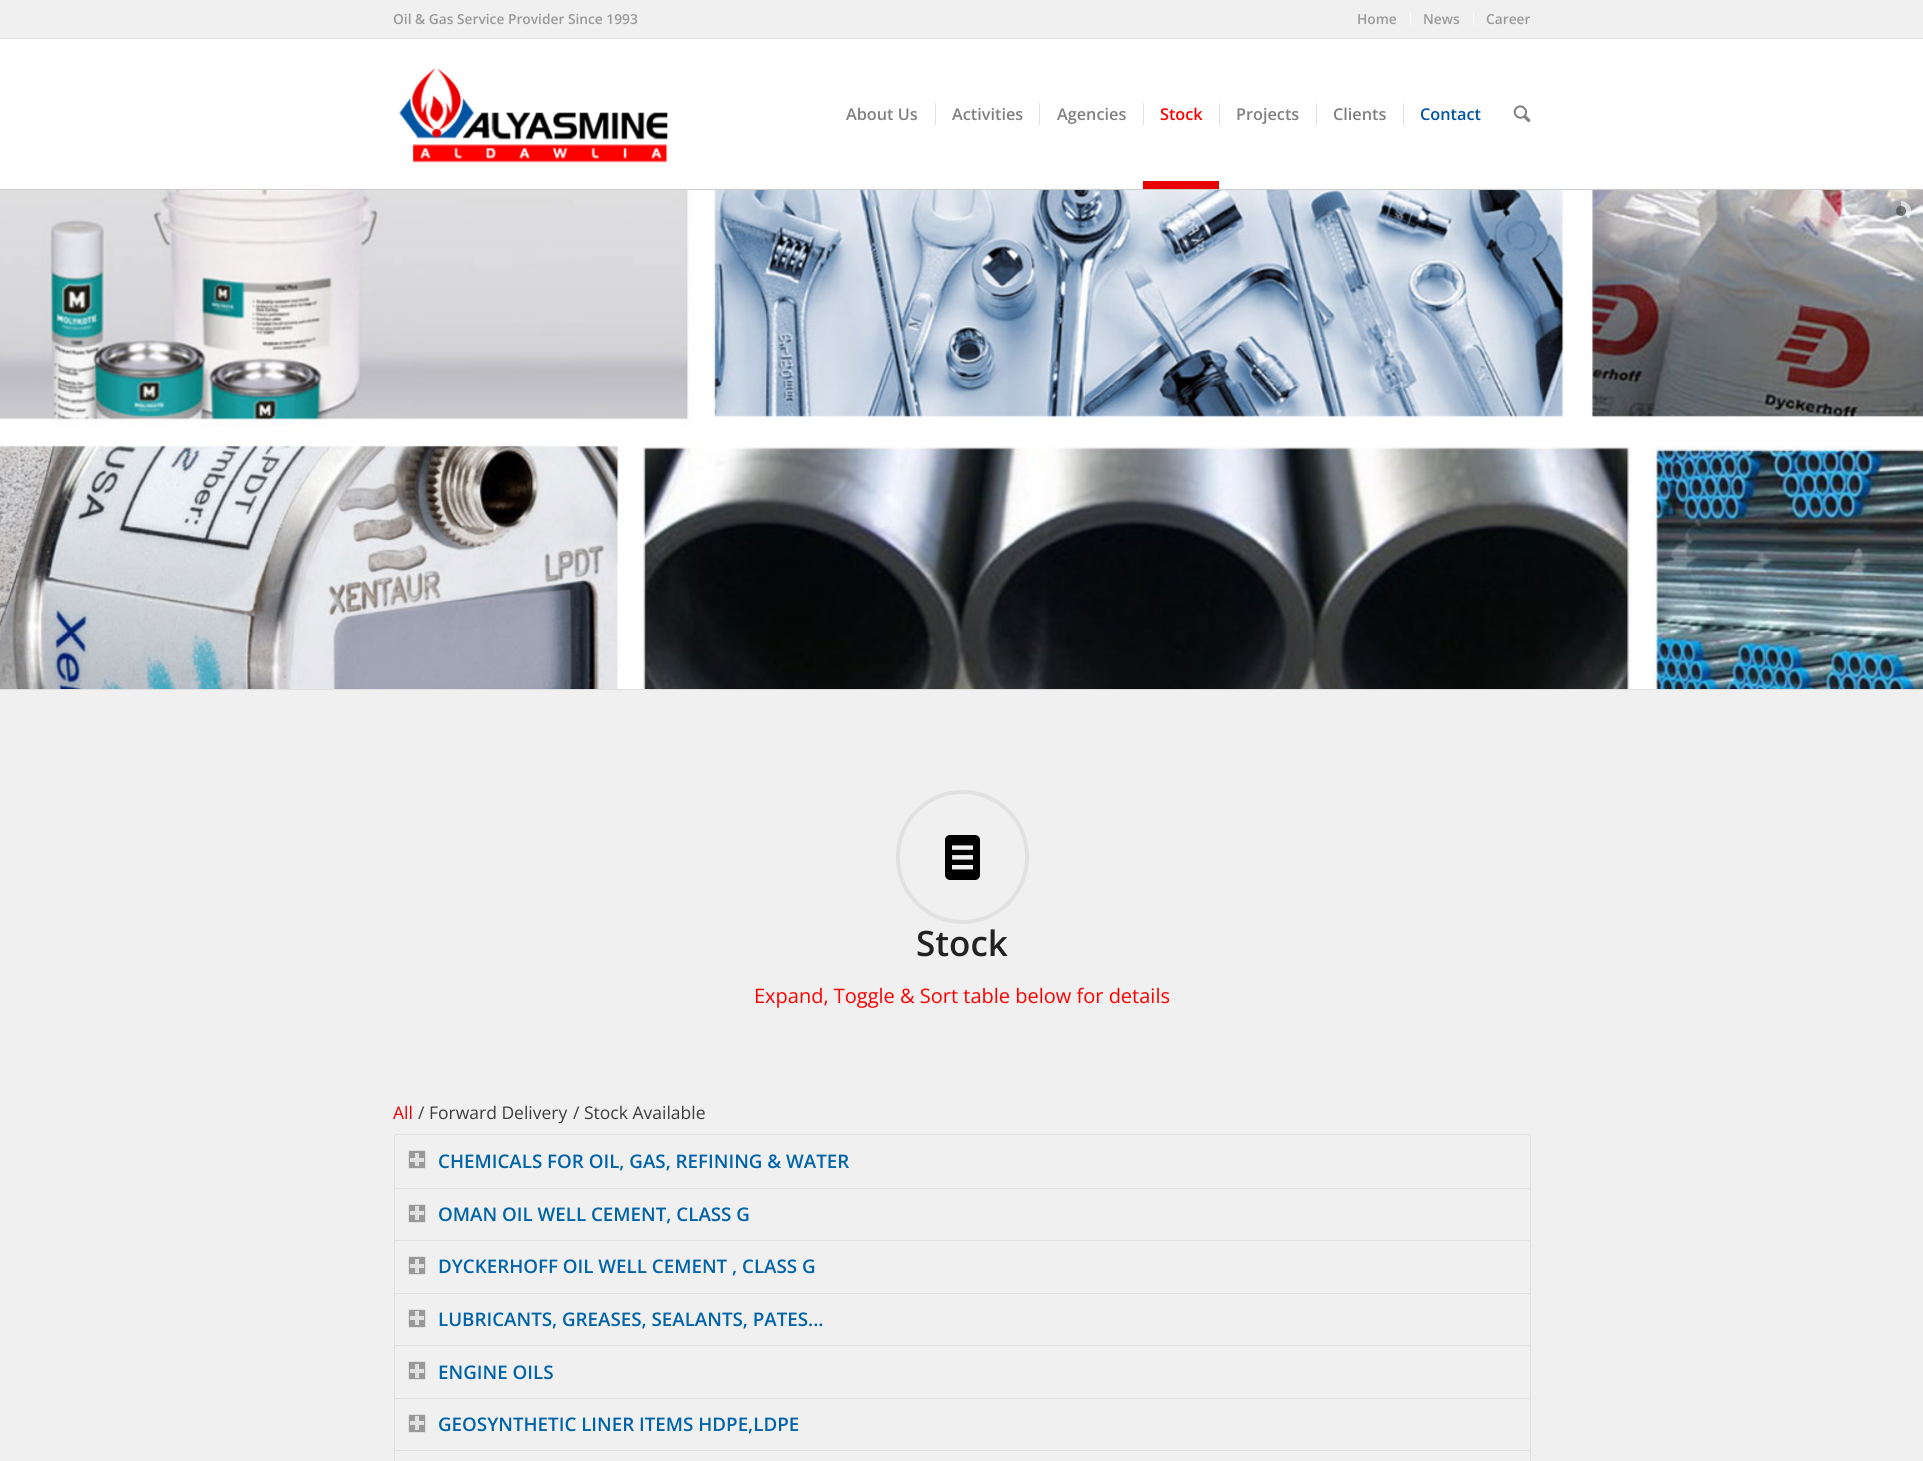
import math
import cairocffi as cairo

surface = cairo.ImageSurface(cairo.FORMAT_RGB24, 1923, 1461)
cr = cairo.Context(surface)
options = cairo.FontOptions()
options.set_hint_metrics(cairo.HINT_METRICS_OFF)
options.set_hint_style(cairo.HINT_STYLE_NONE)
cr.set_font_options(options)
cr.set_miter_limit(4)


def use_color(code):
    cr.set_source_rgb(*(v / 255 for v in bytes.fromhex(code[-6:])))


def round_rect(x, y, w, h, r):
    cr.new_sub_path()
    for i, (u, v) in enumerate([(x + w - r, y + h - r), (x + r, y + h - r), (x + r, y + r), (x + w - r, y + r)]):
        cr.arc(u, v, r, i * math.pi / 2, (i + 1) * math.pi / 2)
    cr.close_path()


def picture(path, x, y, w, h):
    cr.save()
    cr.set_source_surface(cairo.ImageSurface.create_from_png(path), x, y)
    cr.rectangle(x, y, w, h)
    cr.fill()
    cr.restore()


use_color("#ffffff")
cr.paint()
use_color("#f0f0f0")
cr.rectangle(0, 0, 1923, 38)
cr.fill()
use_color("#e1e1e1")
cr.rectangle(0, 38, 1923, 1)
cr.fill()
cr.select_font_face("Open Sans SemiBold")
cr.set_font_size(13.75)
use_color("#999999")
cr.move_to(393, 24)
cr.show_text("Oil & Gas Service Provider Since 1993")
use_color("#ffffff")
cr.rectangle(1410, 13, 1, 12)
cr.fill()
use_color("#999999")
cr.move_to(1357, 24)
cr.show_text("Home")
use_color("#ffffff")
cr.rectangle(1473, 13, 1, 12)
cr.fill()
use_color("#999999")
cr.move_to(1423, 24)
cr.show_text("News")
cr.move_to(1486, 24)
cr.show_text("Career")
picture("img3.png", 0, 188, 1923, 501)
use_color("#cccccc")
cr.rectangle(0, 189, 1923, 1)
cr.fill()
picture("img1.png", 399, 68, 269, 95)
cr.set_font_size(16.25)
use_color("#808080")
cr.move_to(846, 120)
cr.show_text("About Us")
cr.move_to(952, 120)
cr.show_text("Activities")
use_color("#e1e1e1")
cr.rectangle(935, 103, 1, 22)
cr.fill()
use_color("#808080")
cr.move_to(1057, 120)
cr.show_text("Agencies")
use_color("#e1e1e1")
cr.rectangle(1039, 103, 1, 22)
cr.fill()
use_color("#ff0000")
cr.move_to(1160, 120)
cr.show_text("Stock")
use_color("#e1e1e1")
cr.rectangle(1143, 103, 1, 22)
cr.fill()
cr.set_source_rgba(1, 1, 1, 0.95)
cr.rectangle(0, 188, 1923, 1)
cr.fill()
use_color("#e80303")
cr.rectangle(1143, 181, 76, 8)
cr.fill()
use_color("#808080")
cr.move_to(1236, 120)
cr.show_text("Projects")
use_color("#e1e1e1")
cr.rectangle(1219, 103, 1, 22)
cr.fill()
use_color("#808080")
cr.move_to(1333, 120)
cr.show_text("Clients")
use_color("#e1e1e1")
cr.rectangle(1316, 103, 1, 22)
cr.fill()
use_color("#0054a2")
cr.move_to(1420, 120)
cr.show_text("Contact")
use_color("#e1e1e1")
cr.rectangle(1403, 103, 1, 22)
cr.fill()
picture("img2.png", 1513, 105, 18, 18)
cr.save()
cr.rectangle(1901, 201, 10, 20)
cr.clip()
cr.set_source_rgba(1, 1, 1, 0.65)
cr.new_path()
cr.move_to(1895.5, 202.5)
cr.curve_to(1905, 196.5, 1917, 209.5, 1908.5, 218.5)
cr.line_to(1894, 204)
cr.close_path()
cr.fill()
cr.restore()
cr.set_source_rgba(0.267, 0.267, 0.267, 0.65)
cr.arc(1901, 211, 5, 0, 2 * math.pi)
cr.fill()
use_color("#f0f0f0")
cr.rectangle(0, 690, 1923, 771)
cr.fill()
use_color("#e1e1e1")
cr.rectangle(0, 689, 1923, 1)
cr.fill()
round_rect(898, 792, 129, 130, 64.5)
cr.set_line_width(4)
cr.stroke()
picture("img4.png", 945, 835, 35, 45)
cr.set_font_size(35)
use_color("#222222")
cr.move_to(916, 956)
cr.show_text("Stock")
cr.select_font_face("Open Sans")
cr.set_font_size(20)
use_color("#ff0000")
cr.move_to(754, 1003)
cr.show_text("Expand, Toggle & Sort table below for details")
cr.set_font_size(17.5)
use_color("#e80303")
cr.move_to(393, 1119)
cr.show_text("All")
use_color("#3d3d3d")
cr.move_to(418, 1119)
cr.show_text("/")
cr.move_to(429, 1119)
cr.show_text("Forward Delivery")
cr.move_to(573, 1119)
cr.show_text("/")
cr.move_to(584, 1119)
cr.show_text("Stock Available")
cr.new_path()
cr.move_to(396.5, 1134.5)
cr.line_to(1528.5, 1134.5)
cr.curve_to(1529.5, 1134.5, 1530.5, 1135.5, 1530.5, 1136.5)
cr.line_to(1530.5, 1188.5)
cr.line_to(394.5, 1188.5)
cr.line_to(394.5, 1136.5)
cr.curve_to(394.5, 1135.5, 395.5, 1134.5, 396.5, 1134.5)
cr.close_path()
use_color("#e1e1e1")
cr.set_line_width(1)
cr.stroke()
use_color("#999999")
cr.rectangle(408.5, 1150.5, 17, 18)
cr.fill_preserve()
use_color("#e1e1e1")
cr.stroke()
cr.rectangle(415, 1153, 4, 13)
cr.fill()
cr.rectangle(410, 1158, 14, 4)
cr.fill()
cr.select_font_face("Open Sans SemiBold")
cr.set_font_size(18.75)
use_color("#0063a8")
cr.move_to(438, 1168)
cr.show_text("CHEMICALS FOR OIL, GAS, REFINING & WATER")
use_color("#f0f0f0")
cr.new_path()
cr.move_to(396.5, 1188.5)
cr.line_to(1528.5, 1188.5)
cr.curve_to(1529.5, 1188.5, 1530.5, 1189.5, 1530.5, 1190.5)
cr.line_to(1530.5, 1240.5)
cr.line_to(394.5, 1240.5)
cr.line_to(394.5, 1190.5)
cr.curve_to(394.5, 1189.5, 395.5, 1188.5, 396.5, 1188.5)
cr.close_path()
cr.fill_preserve()
use_color("#e1e1e1")
cr.stroke()
use_color("#999999")
cr.rectangle(408.5, 1204.5, 17, 18)
cr.fill_preserve()
use_color("#e1e1e1")
cr.stroke()
cr.rectangle(415, 1206, 4, 14)
cr.fill()
cr.rectangle(410, 1211, 14, 4)
cr.fill()
use_color("#0063a8")
cr.move_to(438, 1221)
cr.show_text("OMAN OIL WELL CEMENT, CLASS G")
use_color("#f0f0f0")
cr.new_path()
cr.move_to(396.5, 1240.5)
cr.line_to(1528.5, 1240.5)
cr.curve_to(1529.5, 1240.5, 1530.5, 1241.5, 1530.5, 1242.5)
cr.line_to(1530.5, 1293.5)
cr.line_to(394.5, 1293.5)
cr.line_to(394.5, 1242.5)
cr.curve_to(394.5, 1241.5, 395.5, 1240.5, 396.5, 1240.5)
cr.close_path()
cr.fill_preserve()
use_color("#e1e1e1")
cr.stroke()
use_color("#999999")
cr.rectangle(408.5, 1256.5, 17, 18)
cr.fill_preserve()
use_color("#e1e1e1")
cr.stroke()
cr.rectangle(415, 1259, 4, 14)
cr.fill()
cr.rectangle(410, 1264, 14, 4)
cr.fill()
use_color("#0063a8")
cr.move_to(438, 1273)
cr.show_text("DYCKERHOFF OIL WELL CEMENT , CLASS G")
use_color("#f0f0f0")
cr.new_path()
cr.move_to(396.5, 1293.5)
cr.line_to(1528.5, 1293.5)
cr.curve_to(1529.5, 1293.5, 1530.5, 1294.5, 1530.5, 1295.5)
cr.line_to(1530.5, 1345.5)
cr.line_to(394.5, 1345.5)
cr.line_to(394.5, 1295.5)
cr.curve_to(394.5, 1294.5, 395.5, 1293.5, 396.5, 1293.5)
cr.close_path()
cr.fill_preserve()
use_color("#e1e1e1")
cr.stroke()
use_color("#999999")
cr.rectangle(408.5, 1309.5, 17, 18)
cr.fill_preserve()
use_color("#e1e1e1")
cr.stroke()
cr.rectangle(415, 1311, 4, 14)
cr.fill()
cr.rectangle(410, 1316, 14, 4)
cr.fill()
use_color("#0063a8")
cr.move_to(438, 1326)
cr.show_text("LUBRICANTS, GREASES, SEALANTS, PATES...")
use_color("#f0f0f0")
cr.new_path()
cr.move_to(396.5, 1345.5)
cr.line_to(1528.5, 1345.5)
cr.curve_to(1529.5, 1345.5, 1530.5, 1346.5, 1530.5, 1347.5)
cr.line_to(1530.5, 1398.5)
cr.line_to(394.5, 1398.5)
cr.line_to(394.5, 1347.5)
cr.curve_to(394.5, 1346.5, 395.5, 1345.5, 396.5, 1345.5)
cr.close_path()
cr.fill_preserve()
use_color("#e1e1e1")
cr.stroke()
use_color("#999999")
cr.rectangle(408.5, 1361.5, 17, 18)
cr.fill_preserve()
use_color("#e1e1e1")
cr.stroke()
cr.rectangle(415, 1364, 4, 14)
cr.fill()
cr.rectangle(410, 1369, 14, 4)
cr.fill()
use_color("#0063a8")
cr.move_to(438, 1379)
cr.show_text("ENGINE OILS")
use_color("#f0f0f0")
cr.new_path()
cr.move_to(396.5, 1398.5)
cr.line_to(1528.5, 1398.5)
cr.curve_to(1529.5, 1398.5, 1530.5, 1399.5, 1530.5, 1400.5)
cr.line_to(1530.5, 1450.5)
cr.line_to(394.5, 1450.5)
cr.line_to(394.5, 1400.5)
cr.curve_to(394.5, 1399.5, 395.5, 1398.5, 396.5, 1398.5)
cr.close_path()
cr.fill_preserve()
use_color("#e1e1e1")
cr.stroke()
use_color("#999999")
cr.rectangle(408.5, 1414.5, 17, 18)
cr.fill_preserve()
use_color("#e1e1e1")
cr.stroke()
cr.rectangle(415, 1416, 4, 14)
cr.fill()
cr.rectangle(410, 1421, 14, 4)
cr.fill()
use_color("#0063a8")
cr.move_to(438, 1431)
cr.show_text("GEOSYNTHETIC LINER ITEMS HDPE,LDPE")
use_color("#f0f0f0")
cr.new_path()
cr.move_to(396.5, 1450.5)
cr.line_to(1528.5, 1450.5)
cr.curve_to(1529.5, 1450.5, 1530.5, 1451.5, 1530.5, 1452.5)
cr.line_to(1530.5, 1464.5)
cr.line_to(394.5, 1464.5)
cr.line_to(394.5, 1452.5)
cr.curve_to(394.5, 1451.5, 395.5, 1450.5, 396.5, 1450.5)
cr.close_path()
cr.fill_preserve()
use_color("#e1e1e1")
cr.stroke()
surface.write_to_png("result.png")
